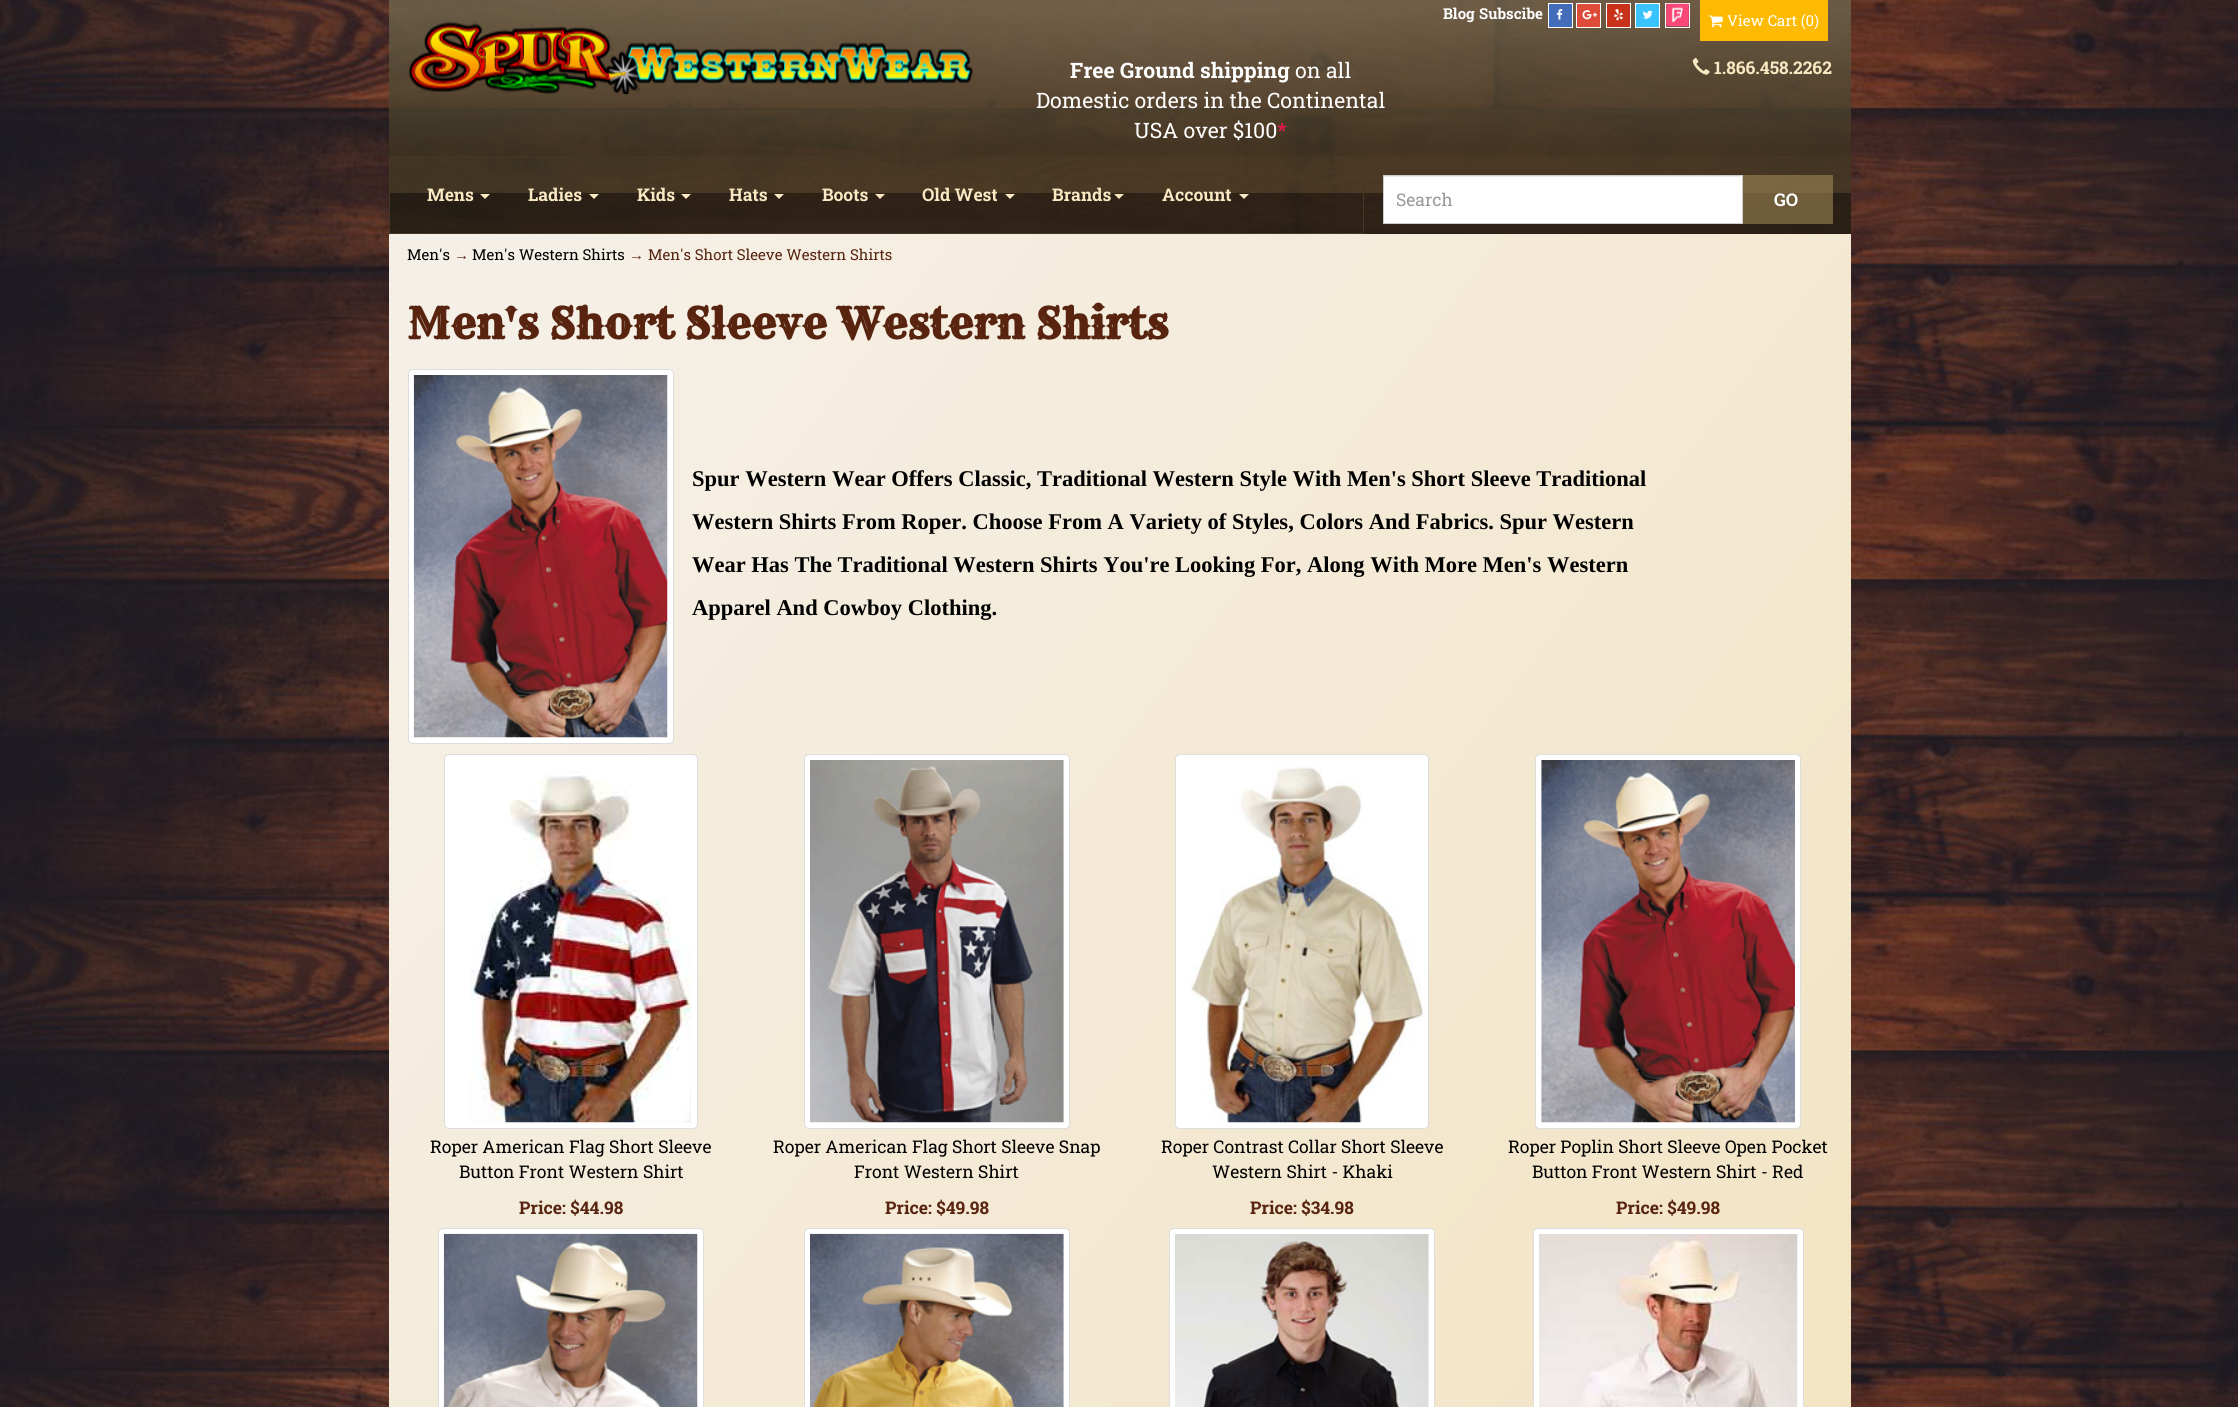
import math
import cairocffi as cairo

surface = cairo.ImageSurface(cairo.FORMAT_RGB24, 2238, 1407)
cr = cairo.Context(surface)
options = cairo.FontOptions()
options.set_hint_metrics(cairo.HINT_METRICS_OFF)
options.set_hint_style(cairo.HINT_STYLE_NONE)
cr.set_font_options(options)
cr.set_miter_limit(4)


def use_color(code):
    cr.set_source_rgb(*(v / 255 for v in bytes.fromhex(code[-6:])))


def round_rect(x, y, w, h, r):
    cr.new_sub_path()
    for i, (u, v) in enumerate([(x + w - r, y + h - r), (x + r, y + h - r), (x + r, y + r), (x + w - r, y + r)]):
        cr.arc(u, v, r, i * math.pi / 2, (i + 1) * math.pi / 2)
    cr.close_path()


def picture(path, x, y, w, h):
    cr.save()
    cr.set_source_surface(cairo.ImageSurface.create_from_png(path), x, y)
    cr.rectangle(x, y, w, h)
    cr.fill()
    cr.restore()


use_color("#ffffff")
cr.paint()
picture("img1.png", 0, 0, 2238, 1407)
picture("img2.png", 408, 21, 565, 74)
use_color("#436dba")
cr.rectangle(1548.5, 3.5, 24, 24)
cr.fill_preserve()
use_color("#ffffff")
cr.set_line_width(1)
cr.stroke()
picture("img3.png", 1556, 9, 7, 11)
use_color("#dd4b39")
cr.rectangle(1576.5, 3.5, 24, 24)
cr.fill_preserve()
use_color("#ffffff")
cr.stroke()
picture("img4.png", 1582, 10, 15, 10)
use_color("#c83218")
cr.rectangle(1606.5, 3.5, 24, 24)
cr.fill_preserve()
use_color("#ffffff")
cr.stroke()
picture("img5.png", 1614, 9, 9, 12)
use_color("#3ac3ff")
cr.rectangle(1635.5, 3.5, 24, 24)
cr.fill_preserve()
use_color("#ffffff")
cr.stroke()
picture("img6.png", 1643, 10, 10, 9)
cr.rectangle(1665.5, 3.5, 24, 24)
cr.stroke()
cr.select_font_face("Roboto Slab", cairo.FONT_SLANT_NORMAL, cairo.FONT_WEIGHT_BOLD)
cr.set_font_size(15)
cr.move_to(1443, 19)
cr.show_text("Blog")
cr.move_to(1479, 19)
cr.show_text("Subscibe")
picture("img7.png", 1666, 3, 23, 24)
use_color("#feba00")
cr.rectangle(1700, 0, 128, 41)
cr.fill()
picture("img8.png", 1708, 15, 15, 13)
cr.select_font_face("Roboto Slab")
use_color("#ffffff")
cr.move_to(1727, 26)
cr.show_text("View Cart (0)")
picture("img9.png", 1692, 57, 18, 18)
cr.select_font_face("Roboto Slab", cairo.FONT_SLANT_NORMAL, cairo.FONT_WEIGHT_BOLD)
cr.set_font_size(17.5)
use_color("#f9e8c2")
cr.move_to(1714, 74)
cr.show_text("1.866.458.2262")
cr.set_font_size(21.25)
use_color("#ffffff")
cr.move_to(1070, 78)
cr.show_text("Free Ground shipping")
cr.select_font_face("Roboto Slab")
cr.move_to(1295, 78)
cr.show_text("on all")
cr.move_to(1036, 108)
cr.show_text("Domestic orders in the Continental")
cr.move_to(1134, 138)
cr.show_text("USA over $100")
use_color("#ed154f")
cr.move_to(1277, 138)
cr.show_text("*")
cr.set_source_rgba(0.259, 0.22, 0.137, 0.81)
cr.rectangle(390, 156, 1461, 37)
cr.fill()
cr.set_source_rgba(0.133, 0.114, 0.075, 0.84)
cr.rectangle(390, 193, 1461, 41)
cr.fill()
cr.rectangle(389.5, 156.5, 974, 77)
use_color("#423823")
cr.stroke()
cr.select_font_face("Roboto Slab", cairo.FONT_SLANT_NORMAL, cairo.FONT_WEIGHT_BOLD)
cr.set_font_size(17.5)
use_color("#f9e8c2")
cr.move_to(427, 201)
cr.show_text("Mens")
cr.new_path()
cr.move_to(480, 194)
cr.line_to(490, 194)
cr.line_to(485, 199)
cr.close_path()
cr.fill()
cr.move_to(528, 201)
cr.show_text("Ladies")
cr.new_path()
cr.move_to(589, 194)
cr.line_to(599, 194)
cr.line_to(594, 199)
cr.close_path()
cr.fill()
cr.move_to(637, 201)
cr.show_text("Kids")
cr.new_path()
cr.move_to(681, 194)
cr.line_to(691, 194)
cr.line_to(686, 199)
cr.close_path()
cr.fill()
cr.move_to(729, 201)
cr.show_text("Hats")
cr.new_path()
cr.move_to(774, 194)
cr.line_to(784, 194)
cr.line_to(779, 199)
cr.close_path()
cr.fill()
cr.move_to(822, 201)
cr.show_text("Boots")
cr.new_path()
cr.move_to(875, 194)
cr.line_to(885, 194)
cr.line_to(880, 199)
cr.close_path()
cr.fill()
cr.move_to(922, 201)
cr.show_text("Old West")
cr.new_path()
cr.move_to(1005, 194)
cr.line_to(1015, 194)
cr.line_to(1010, 199)
cr.close_path()
cr.fill()
cr.move_to(1052, 201)
cr.show_text("Brands")
cr.new_path()
cr.move_to(1114, 194)
cr.line_to(1124, 194)
cr.line_to(1119, 199)
cr.close_path()
cr.fill()
cr.move_to(1162, 201)
cr.show_text("Account")
cr.new_path()
cr.move_to(1239, 194)
cr.line_to(1249, 194)
cr.line_to(1244, 199)
cr.close_path()
cr.fill()
use_color("#ffffff")
cr.rectangle(1384, 176, 358, 47)
cr.fill()
use_color("#ececec")
cr.rectangle(1384, 176, 357, 1)
cr.fill()
cr.rectangle(1383.5, 175.5, 359, 48)
use_color("#cccccc")
cr.stroke()
cr.select_font_face("Roboto Slab")
use_color("#999999")
cr.move_to(1396, 206)
cr.show_text("Search")
cr.set_source_rgba(0.671, 0.565, 0.357, 0.54)
cr.rectangle(1743, 175, 90, 49)
cr.fill()
cr.select_font_face("Roboto Slab", cairo.FONT_SLANT_NORMAL, cairo.FONT_WEIGHT_BOLD)
use_color("#ffffff")
cr.move_to(1774, 206)
cr.show_text("GO")
gradient = cairo.LinearGradient(183, 509, 2057, 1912)
gradient.add_color_stop_rgba(0.06, 0.961, 0.941, 0.906, 1)
gradient.add_color_stop_rgba(0.95, 0.949, 0.882, 0.737, 1)
cr.set_source(gradient)
cr.rectangle(389, 234, 1462, 1173)
cr.fill()
cr.select_font_face("Roboto Slab")
cr.set_font_size(15)
use_color("#000000")
cr.move_to(407, 260)
cr.show_text("Men's")
cr.select_font_face("Liberation Sans")
use_color("#582410")
cr.move_to(454, 260)
cr.show_text("→")
cr.select_font_face("Roboto Slab")
use_color("#000000")
cr.move_to(472, 260)
cr.show_text("Men's Western Shirts")
cr.select_font_face("Liberation Sans")
use_color("#582410")
cr.move_to(629, 260)
cr.show_text("→")
cr.select_font_face("Roboto Slab")
cr.move_to(648, 260)
cr.show_text("Men's Short Sleeve Western Shirts")
cr.select_font_face("Rye", cairo.FONT_SLANT_NORMAL, cairo.FONT_WEIGHT_BOLD)
cr.set_font_size(42.5)
cr.move_to(407, 339)
cr.show_text("Men's Short Sleeve Western Shirts")
use_color("#ffffff")
round_rect(408.5, 369.5, 265, 374, 4.5)
cr.fill_preserve()
use_color("#dddddd")
cr.stroke()
picture("img10.png", 413, 375, 255, 363)
cr.select_font_face("Liberation Serif", cairo.FONT_SLANT_NORMAL, cairo.FONT_WEIGHT_BOLD)
cr.set_font_size(22.5)
use_color("#000000")
cr.move_to(692, 486)
cr.show_text("Spur Western Wear Offers Classic, Traditional Western Style With Men's Short Sleeve Traditional")
cr.move_to(692, 529)
cr.show_text("Western Shirts From Roper. Choose From A Variety of Styles, Colors And Fabrics. Spur Western")
cr.move_to(692, 572)
cr.show_text("Wear Has The Traditional Western Shirts You're Looking For, Along With More Men's Western")
cr.move_to(692, 615)
cr.show_text("Apparel And Cowboy Clothing.")
use_color("#ffffff")
round_rect(444.5, 754.5, 253, 374, 4.5)
cr.fill_preserve()
use_color("#dddddd")
cr.stroke()
picture("img11.png", 470, 771, 221, 352)
cr.select_font_face("Roboto Slab")
cr.set_font_size(17.5)
use_color("#000000")
cr.move_to(430, 1153)
cr.show_text("Roper American Flag Short Sleeve")
cr.move_to(459, 1178)
cr.show_text("Button Front Western Shirt")
cr.select_font_face("Roboto Slab", cairo.FONT_SLANT_NORMAL, cairo.FONT_WEIGHT_BOLD)
use_color("#582410")
cr.move_to(519, 1214)
cr.show_text("Price: $44.98")
use_color("#ffffff")
round_rect(804.5, 754.5, 265, 374, 4.5)
cr.fill_preserve()
use_color("#dddddd")
cr.stroke()
picture("img12.png", 810, 760, 254, 363)
cr.select_font_face("Roboto Slab")
use_color("#000000")
cr.move_to(773, 1153)
cr.show_text("Roper American Flag Short Sleeve Snap")
cr.move_to(854, 1178)
cr.show_text("Front Western Shirt")
cr.select_font_face("Roboto Slab", cairo.FONT_SLANT_NORMAL, cairo.FONT_WEIGHT_BOLD)
use_color("#582410")
cr.move_to(885, 1214)
cr.show_text("Price: $49.98")
use_color("#ffffff")
round_rect(1175.5, 754.5, 253, 374, 4.5)
cr.fill_preserve()
use_color("#dddddd")
cr.stroke()
picture("img13.png", 1182, 760, 241, 363)
cr.select_font_face("Roboto Slab")
use_color("#000000")
cr.move_to(1161, 1153)
cr.show_text("Roper Contrast Collar Short Sleeve")
cr.move_to(1212, 1178)
cr.show_text("Western Shirt - Khaki")
cr.select_font_face("Roboto Slab", cairo.FONT_SLANT_NORMAL, cairo.FONT_WEIGHT_BOLD)
use_color("#582410")
cr.move_to(1250, 1214)
cr.show_text("Price: $34.98")
use_color("#ffffff")
round_rect(1535.5, 754.5, 265, 374, 4.5)
cr.fill_preserve()
use_color("#dddddd")
cr.stroke()
picture("img14.png", 1541, 760, 254, 363)
cr.select_font_face("Roboto Slab")
use_color("#000000")
cr.move_to(1508, 1153)
cr.show_text("Roper Poplin Short Sleeve Open Pocket")
cr.move_to(1532, 1178)
cr.show_text("Button Front Western Shirt - Red")
cr.select_font_face("Roboto Slab", cairo.FONT_SLANT_NORMAL, cairo.FONT_WEIGHT_BOLD)
use_color("#582410")
cr.move_to(1616, 1214)
cr.show_text("Price: $49.98")
use_color("#ffffff")
round_rect(438.5, 1228.5, 265, 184, 4.5)
cr.fill_preserve()
use_color("#dddddd")
cr.stroke()
picture("img15.png", 443, 1233, 255, 174)
use_color("#ffffff")
round_rect(804.5, 1228.5, 265, 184, 4.5)
cr.fill_preserve()
use_color("#dddddd")
cr.stroke()
picture("img16.png", 810, 1233, 254, 174)
use_color("#ffffff")
round_rect(1169.5, 1228.5, 265, 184, 4.5)
cr.fill_preserve()
use_color("#dddddd")
cr.stroke()
picture("img17.png", 1175, 1234, 254, 173)
use_color("#ffffff")
round_rect(1533.5, 1228.5, 270, 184, 4.5)
cr.fill_preserve()
use_color("#dddddd")
cr.stroke()
picture("img18.png", 1539, 1234, 259, 173)
surface.write_to_png("result.png")
